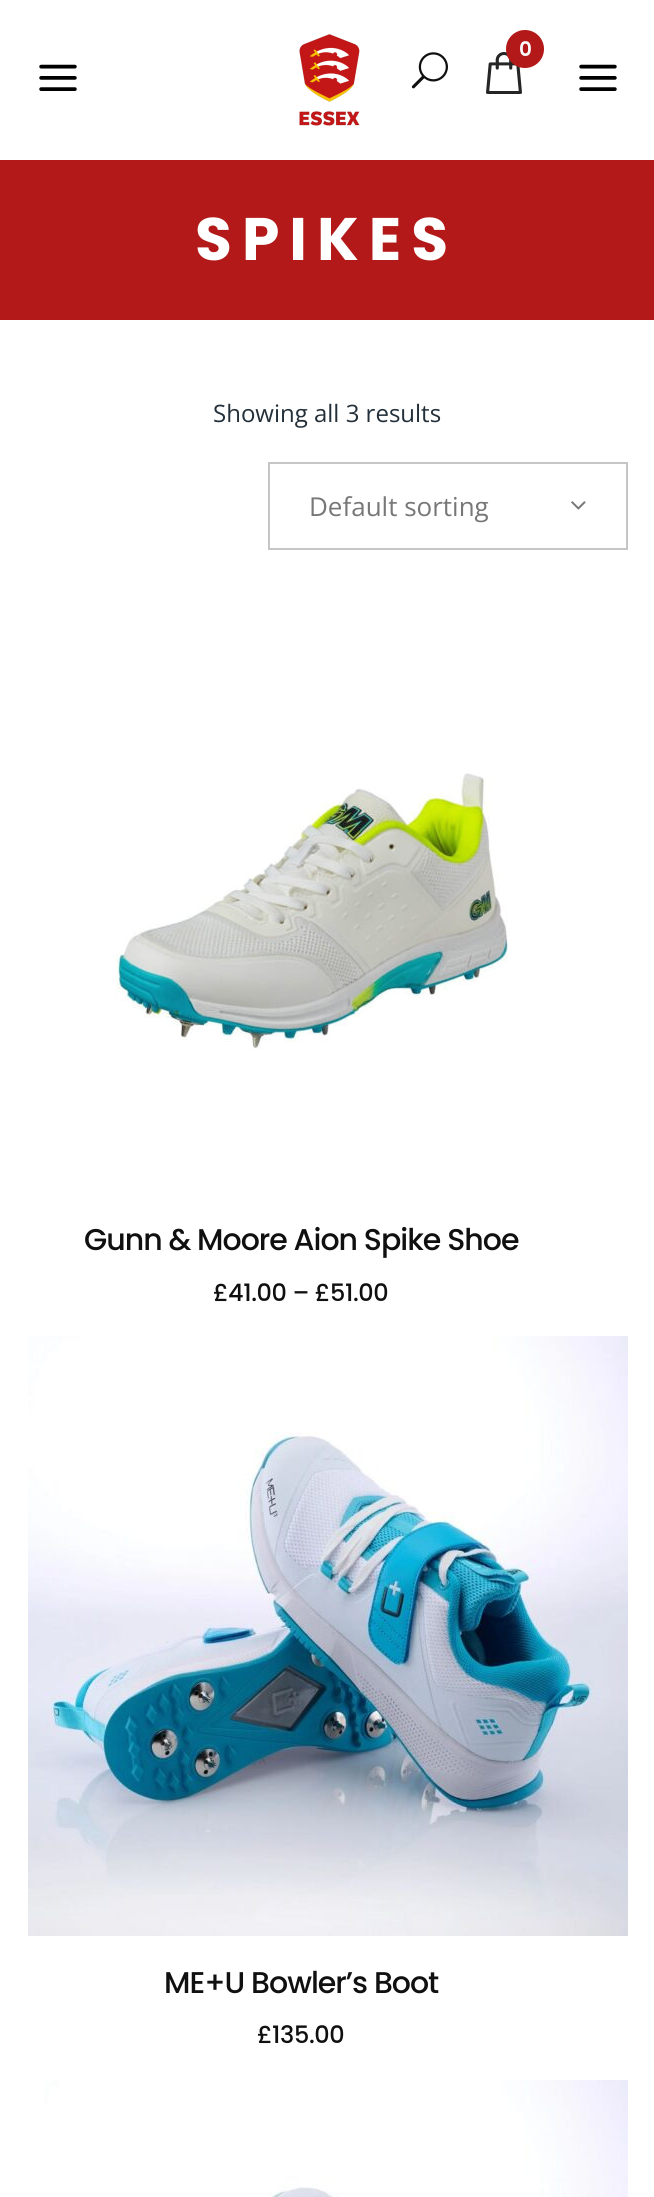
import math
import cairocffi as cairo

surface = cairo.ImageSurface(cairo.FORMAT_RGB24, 654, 2197)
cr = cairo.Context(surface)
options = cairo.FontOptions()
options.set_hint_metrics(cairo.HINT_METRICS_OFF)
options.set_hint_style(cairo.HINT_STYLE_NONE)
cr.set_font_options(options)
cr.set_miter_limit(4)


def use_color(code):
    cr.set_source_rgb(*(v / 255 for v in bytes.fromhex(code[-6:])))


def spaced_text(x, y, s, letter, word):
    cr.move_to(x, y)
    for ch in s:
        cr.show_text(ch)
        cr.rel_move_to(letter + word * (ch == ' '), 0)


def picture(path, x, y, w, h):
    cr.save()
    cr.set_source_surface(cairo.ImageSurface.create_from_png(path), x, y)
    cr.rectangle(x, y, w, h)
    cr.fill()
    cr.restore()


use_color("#ffffff")
cr.paint()
picture("img1.png", 299, 34, 61, 92)
picture("img2.png", 486, 52, 36, 42)
use_color("#b21918")
cr.arc(525, 49, 19, 0, 2 * math.pi)
cr.fill()
cr.select_font_face("Poppins SemiBold")
cr.set_font_size(20)
use_color("#ffffff")
cr.move_to(519, 56)
cr.show_text("0")
picture("img3.png", 411, 52, 37, 37)
picture("img4.png", 579, 64, 38, 27)
picture("img4.png", 39, 64, 38, 27)
use_color("#b21918")
cr.rectangle(0, 160, 654, 160)
cr.fill()
cr.select_font_face("Poppins", cairo.FONT_SLANT_NORMAL, cairo.FONT_WEIGHT_BOLD)
cr.set_font_size(60)
use_color("#ffffff")
spaced_text(195, 260, "SPIKES", 10, 0)
cr.select_font_face("Open Sans")
cr.set_font_size(24)
use_color("#23303a")
cr.move_to(213, 422)
cr.show_text("Showing all 3 results")
cr.rectangle(269, 463, 358, 86)
use_color("#c6c6c6")
cr.stroke()
cr.set_font_size(26)
use_color("#777777")
cr.move_to(309, 516)
cr.show_text("Default sorting")
picture("img5.png", 571, 501, 15, 9)
picture("img6.png", 116, 773, 392, 277)
cr.select_font_face("Poppins Medium")
cr.set_font_size(30)
use_color("#101010")
spaced_text(84, 1250, "Gunn & Moore Aion Spike Shoe", -1, 0)
cr.set_font_size(24)
spaced_text(213, 1301, "£41.00 – £51.00", -0.4, 0)
picture("img7.png", 28, 1336, 600, 600)
cr.set_font_size(30)
spaced_text(164, 1993, "ME+U Bowler’s Boot", -1, 0)
cr.set_font_size(24)
spaced_text(257, 2043, "£135.00", -0.4, 0)
picture("img8.png", 44, 2080, 584, 117)
surface.write_to_png("result.png")
